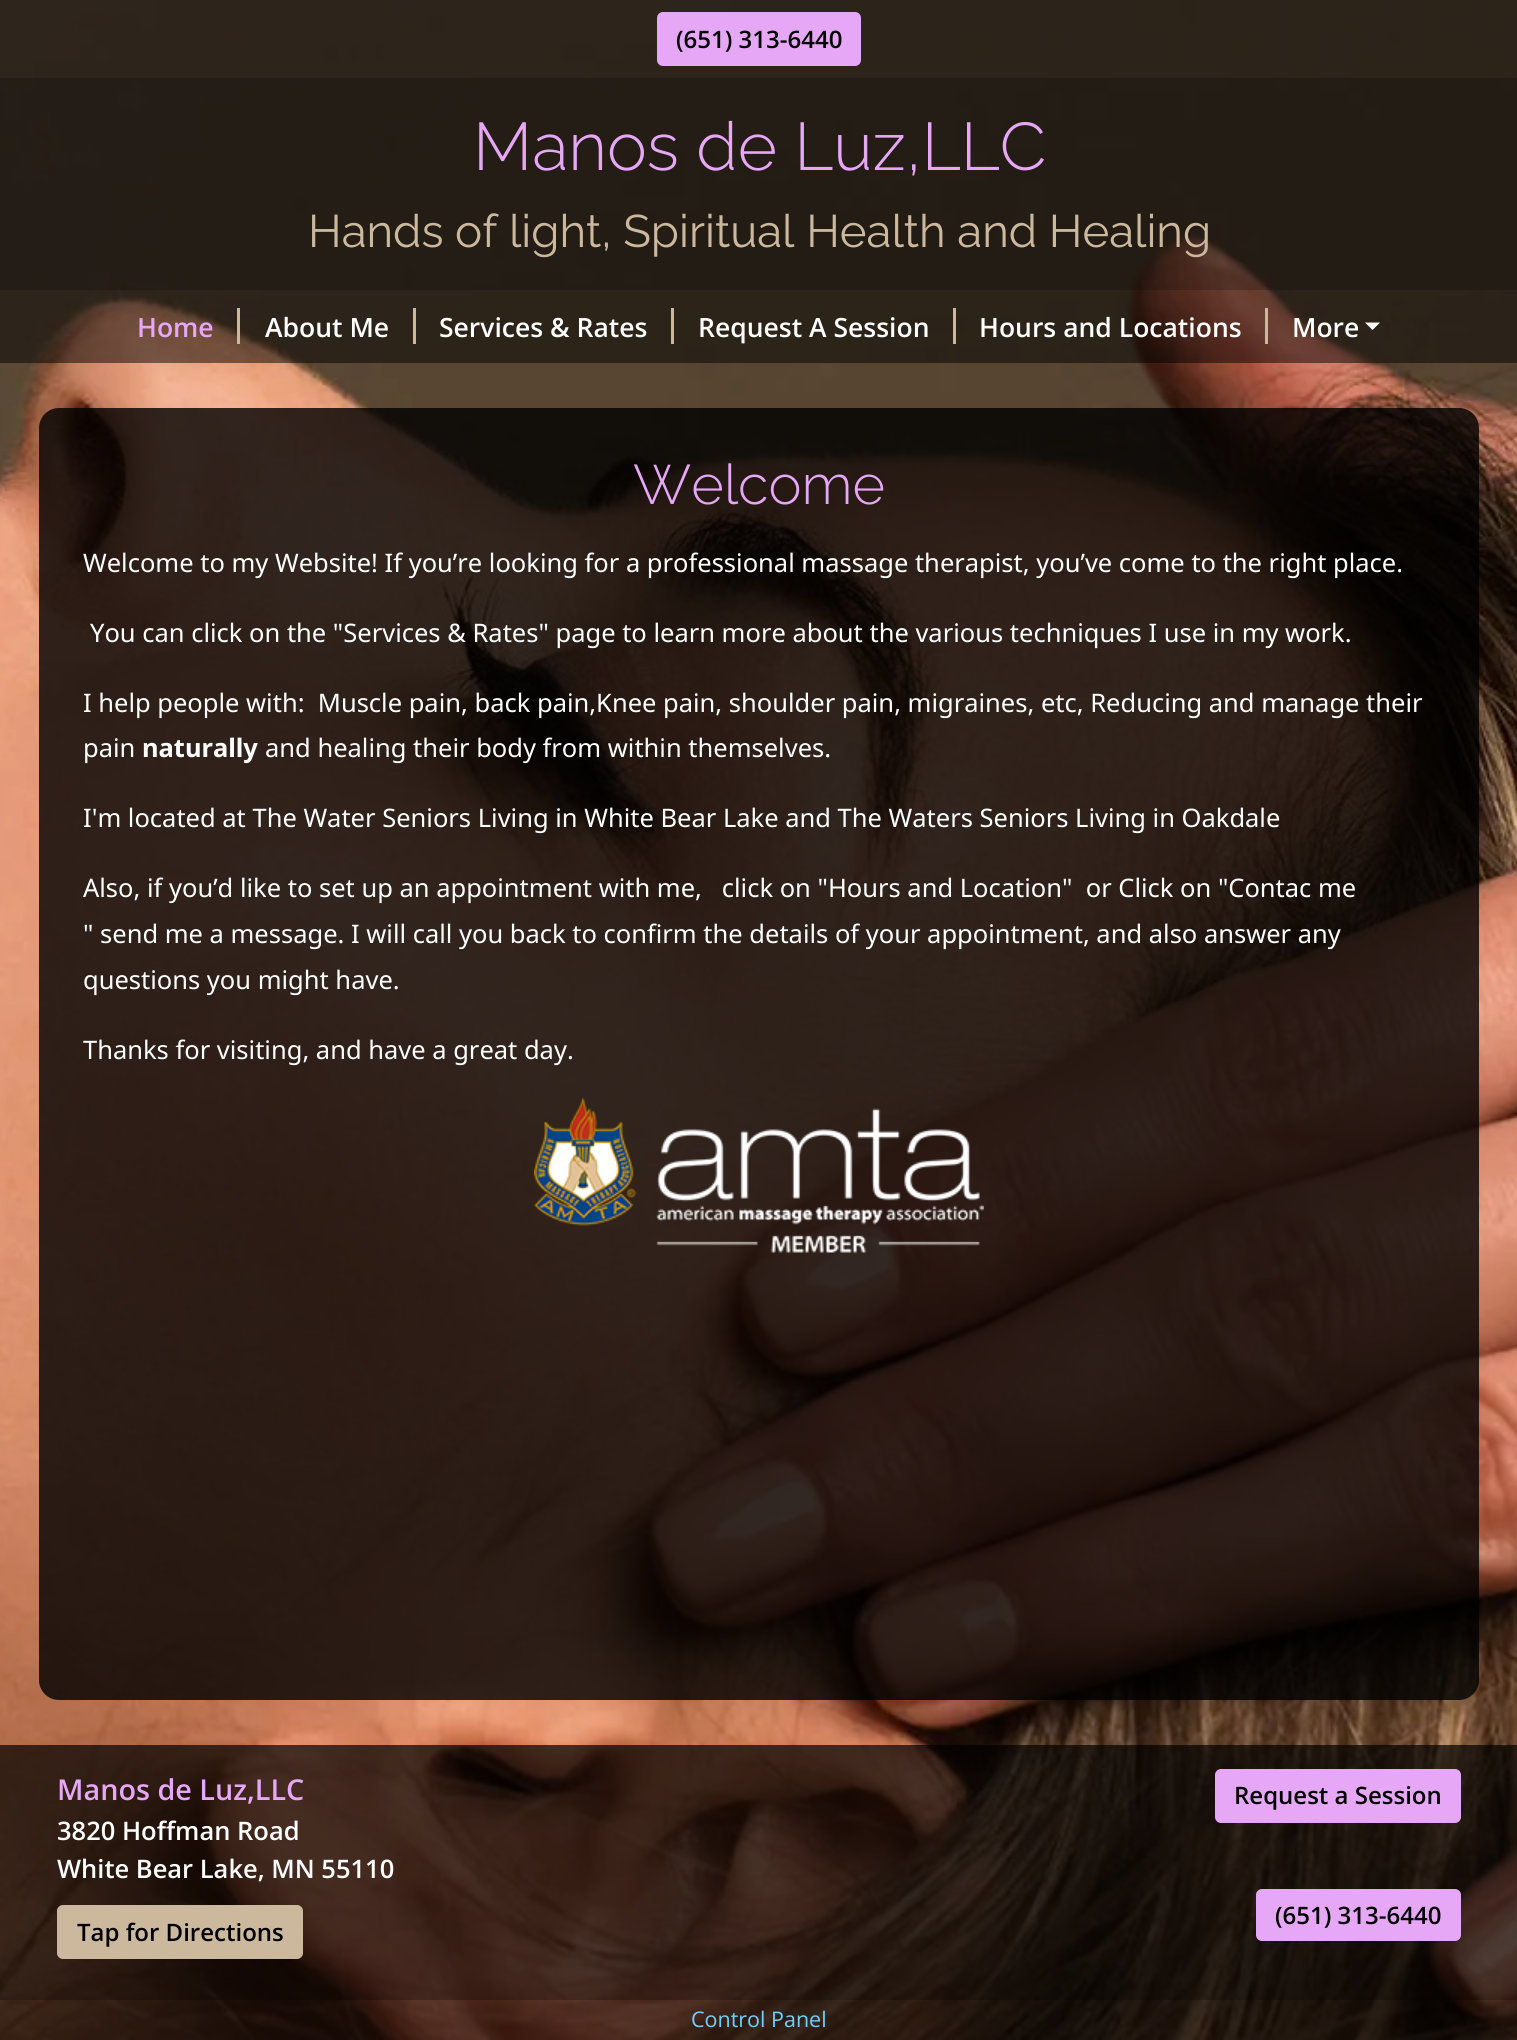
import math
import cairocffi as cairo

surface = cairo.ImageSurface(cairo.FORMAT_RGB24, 1517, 2040)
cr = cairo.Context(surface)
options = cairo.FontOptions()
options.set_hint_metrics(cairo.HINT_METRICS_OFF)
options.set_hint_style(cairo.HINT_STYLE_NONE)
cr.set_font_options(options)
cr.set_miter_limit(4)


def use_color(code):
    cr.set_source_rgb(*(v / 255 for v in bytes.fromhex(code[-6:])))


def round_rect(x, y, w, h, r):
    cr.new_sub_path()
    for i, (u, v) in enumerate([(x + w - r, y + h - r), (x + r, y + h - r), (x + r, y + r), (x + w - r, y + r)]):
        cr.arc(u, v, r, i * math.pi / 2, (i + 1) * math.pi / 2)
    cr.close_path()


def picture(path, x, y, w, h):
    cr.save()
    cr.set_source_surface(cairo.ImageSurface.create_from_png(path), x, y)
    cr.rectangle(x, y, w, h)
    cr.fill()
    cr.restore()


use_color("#ffffff")
cr.paint()
picture("img1.png", 0, 0, 1517, 2040)
cr.set_source_rgba(0, 0, 0, 0.5)
cr.rectangle(0, 0, 1517, 78)
cr.fill()
use_color("#e7a7f7")
round_rect(658, 13, 202, 52, 5)
cr.fill_preserve()
cr.stroke()
cr.select_font_face("Open Sans SemiBold")
cr.set_font_size(24)
use_color("#000000")
cr.move_to(676, 48)
cr.show_text("(651) 313-6440")
cr.set_source_rgba(0, 0, 0, 0.6)
cr.rectangle(0, 78, 1517, 212)
cr.fill()
cr.select_font_face("Raleway Light")
cr.set_font_size(67.25)
use_color("#e7a7f7")
cr.move_to(473, 170)
cr.show_text("Manos de Luz,LLC")
cr.select_font_face("Raleway")
cr.set_font_size(45.6)
use_color("#cbb89d")
cr.move_to(308, 247)
cr.show_text("Hands of light, Spiritual Health and Healing")
cr.set_source_rgba(0, 0, 0, 0.5)
cr.rectangle(0, 290, 1517, 73)
cr.fill()
cr.select_font_face("Open Sans SemiBold")
cr.set_font_size(26.5)
use_color("#e7a7f7")
cr.move_to(137, 337)
cr.show_text("Home")
use_color("#cbb89d")
cr.rectangle(237, 308, 3, 36)
cr.fill()
use_color("#ffffff")
cr.move_to(265, 337)
cr.show_text("About Me")
use_color("#cbb89d")
cr.rectangle(413, 308, 3, 36)
cr.fill()
use_color("#ffffff")
cr.move_to(439, 337)
cr.show_text("Services & Rates")
use_color("#cbb89d")
cr.rectangle(671, 308, 3, 36)
cr.fill()
use_color("#ffffff")
cr.move_to(698, 337)
cr.show_text("Request A Session")
use_color("#cbb89d")
cr.rectangle(953, 308, 3, 36)
cr.fill()
use_color("#ffffff")
cr.move_to(979, 337)
cr.show_text("Hours and Locations")
use_color("#cbb89d")
cr.rectangle(1265, 308, 3, 36)
cr.fill()
use_color("#ffffff")
cr.move_to(1292, 337)
cr.show_text("More")
cr.new_path()
cr.move_to(1365, 322.5)
cr.line_to(1380, 322.5)
cr.line_to(1372.5, 330)
cr.close_path()
cr.fill()
cr.set_source_rgba(0, 0, 0, 0.8)
round_rect(39, 408, 1440, 1292, 20)
cr.fill()
cr.select_font_face("Raleway Light")
cr.set_font_size(55.75)
use_color("#e7a7f7")
cr.move_to(633, 504)
cr.show_text("Welcome")
cr.select_font_face("Noto Sans")
cr.set_font_size(25.5)
use_color("#ffffff")
cr.move_to(83, 572)
cr.show_text("Welcome to my Website! If you’re looking for a professional massage therapist, you’ve come to the right place.")
cr.move_to(90, 642)
cr.show_text("You can click on the \"Services & Rates\" page to learn more about the various techniques I use in my work.")
cr.move_to(83, 712)
cr.show_text("I help people with:  Muscle pain, back pain,Knee pain, shoulder pain, migraines, etc, Reducing and manage their")
cr.move_to(83, 757)
cr.show_text("pain")
cr.select_font_face("Noto Sans", cairo.FONT_SLANT_NORMAL, cairo.FONT_WEIGHT_BOLD)
cr.move_to(142, 757)
cr.show_text("naturally")
cr.select_font_face("Noto Sans")
cr.move_to(265, 757)
cr.show_text("and healing their body from within themselves.")
cr.move_to(83, 827)
cr.show_text("I'm located at The Water Seniors Living in White Bear Lake and The Waters Seniors Living in Oakdale")
cr.move_to(83, 897)
cr.show_text("Also, if you’d like to set up an appointment with me,   click on \"Hours and Location\"  or Click on \"Contac me")
cr.move_to(83, 943)
cr.show_text("\" send me a message. I will call you back to confirm the details of your appointment, and also answer any")
cr.move_to(83, 989)
cr.show_text("questions you might have.")
cr.move_to(83, 1059)
cr.show_text("Thanks for visiting, and have a great day.")
picture("img2.png", 534, 1098, 450, 155)
cr.set_source_rgba(0, 0, 0, 0.7)
cr.rectangle(0, 1745, 1517, 255)
cr.fill()
cr.select_font_face("Open Sans SemiBold")
cr.set_font_size(28.75)
use_color("#e7a7f7")
cr.move_to(57, 1800)
cr.show_text("Manos de Luz,LLC")
cr.set_font_size(25.5)
use_color("#ffffff")
cr.move_to(57, 1840)
cr.show_text("3820 Hoffman Road")
cr.move_to(57, 1878)
cr.show_text("White Bear Lake, MN 55110")
use_color("#cbb89d")
round_rect(58, 1906, 244, 52, 5)
cr.fill_preserve()
cr.stroke()
cr.set_font_size(24)
use_color("#000000")
cr.move_to(77, 1941)
cr.show_text("Tap for Directions")
use_color("#e7a7f7")
round_rect(1216, 1770, 244, 52, 5)
cr.fill_preserve()
cr.stroke()
use_color("#000000")
cr.move_to(1234, 1804)
cr.show_text("Request a Session")
use_color("#e7a7f7")
round_rect(1257, 1890, 203, 50, 5)
cr.fill_preserve()
cr.stroke()
use_color("#000000")
cr.move_to(1275, 1924)
cr.show_text("(651) 313-6440")
cr.set_source_rgba(0, 0, 0, 0.6)
cr.rectangle(0, 2000, 1517, 40)
cr.fill()
cr.select_font_face("Open Sans")
cr.set_font_size(21.5)
use_color("#6dd1ff")
cr.move_to(691, 2027)
cr.show_text("Control Panel")
surface.write_to_png("result.png")
